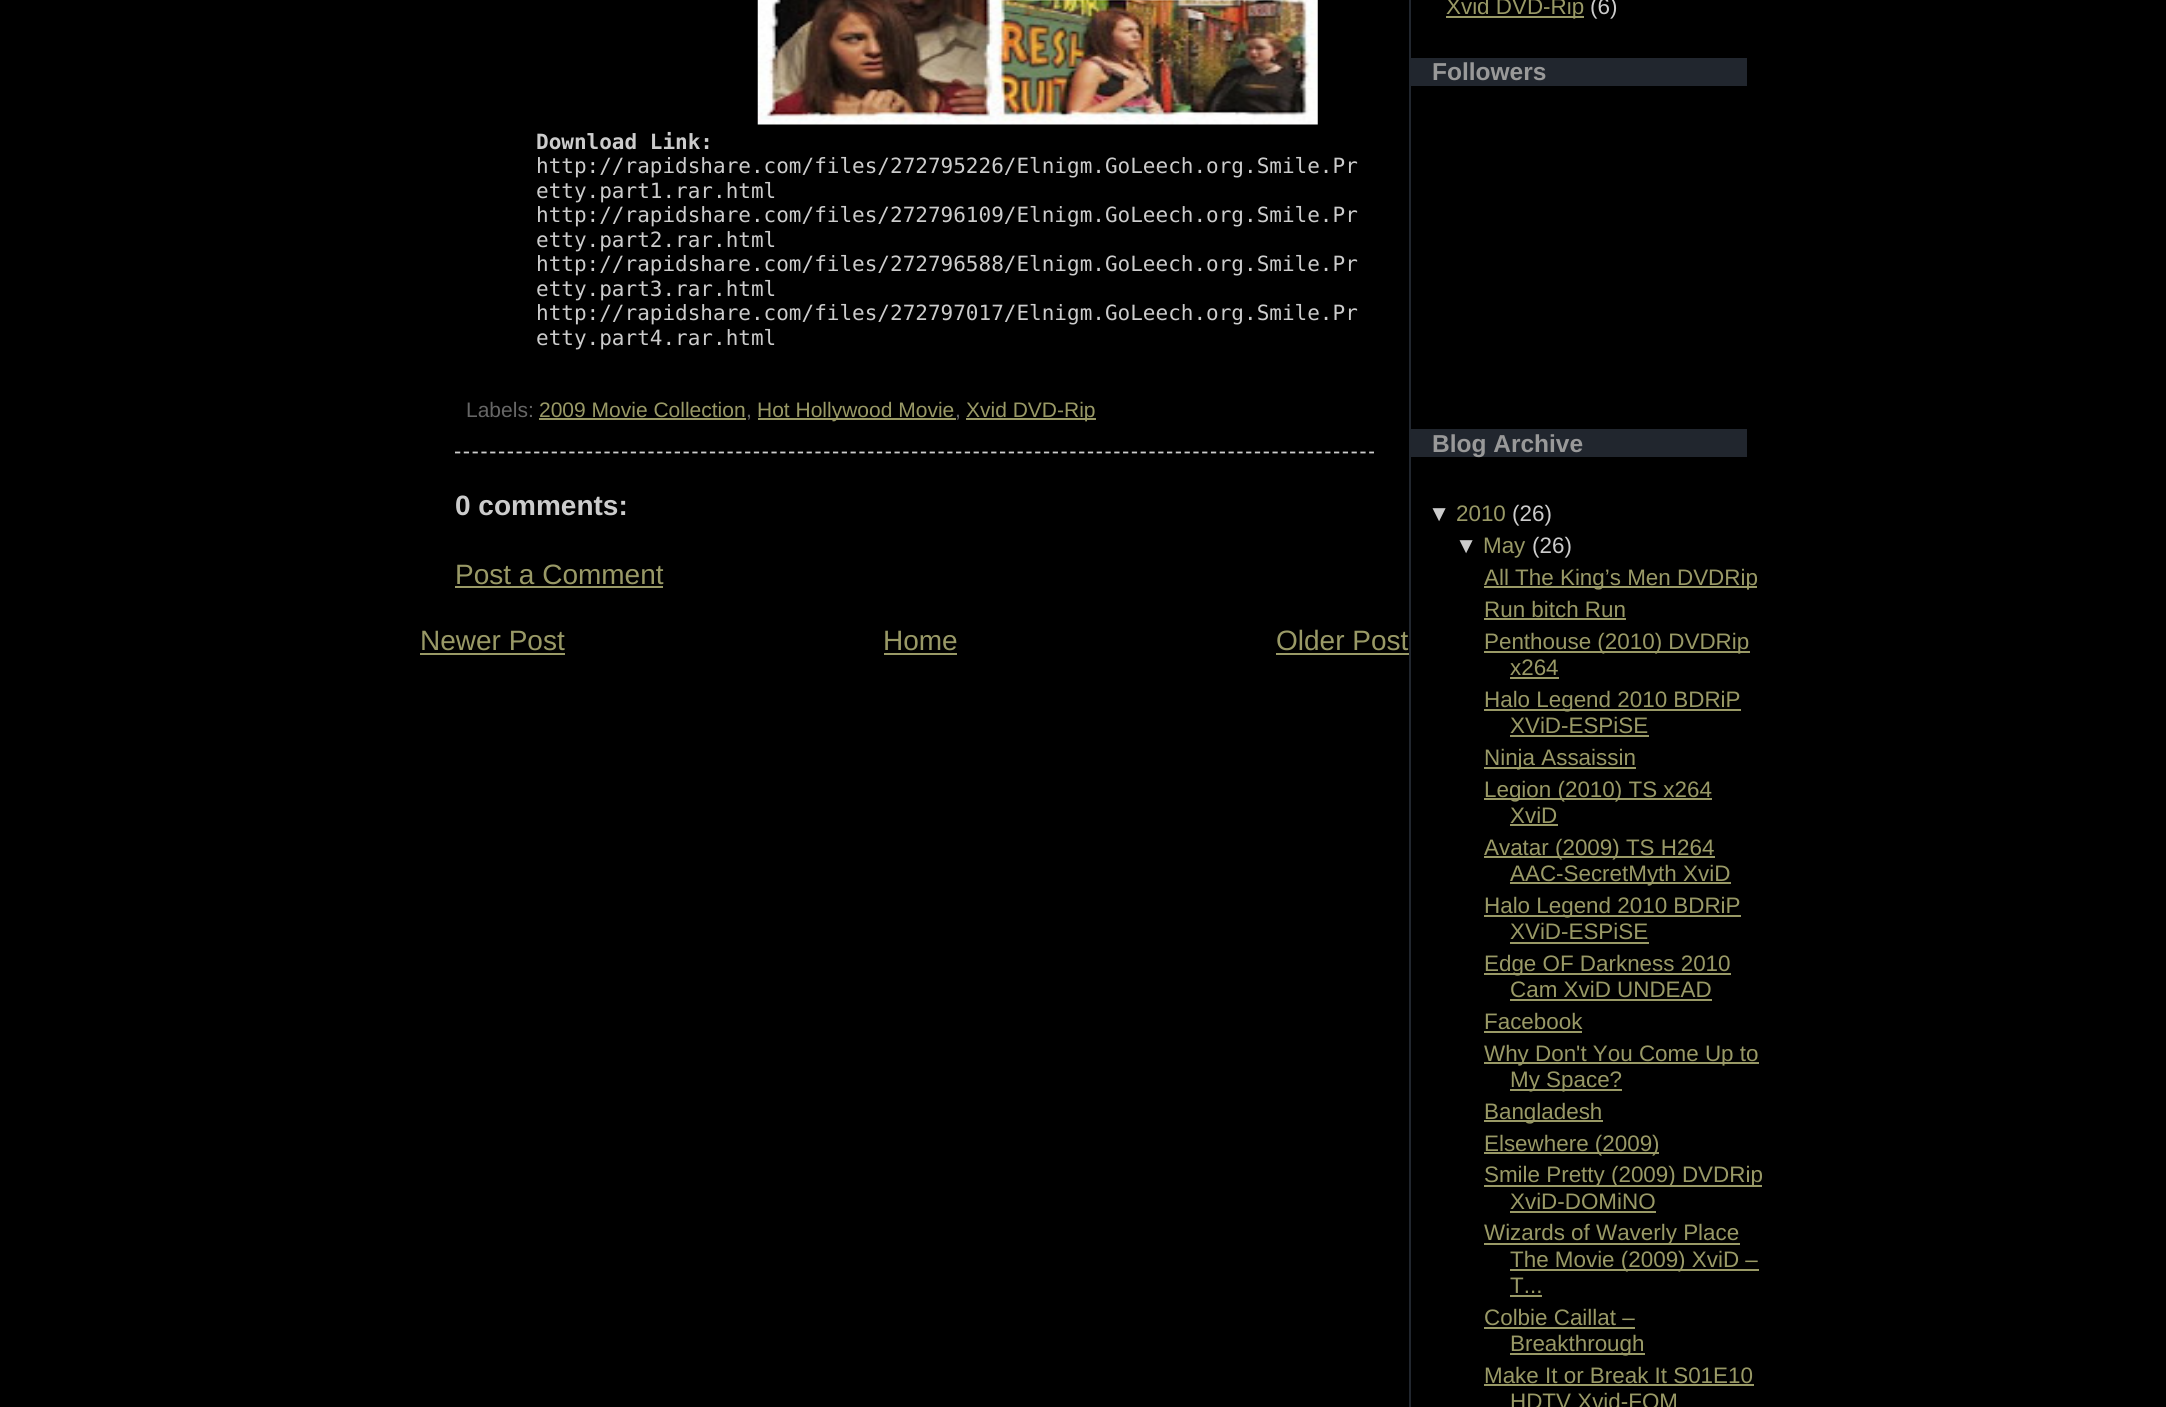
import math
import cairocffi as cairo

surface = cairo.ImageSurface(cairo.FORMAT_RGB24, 2166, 1407)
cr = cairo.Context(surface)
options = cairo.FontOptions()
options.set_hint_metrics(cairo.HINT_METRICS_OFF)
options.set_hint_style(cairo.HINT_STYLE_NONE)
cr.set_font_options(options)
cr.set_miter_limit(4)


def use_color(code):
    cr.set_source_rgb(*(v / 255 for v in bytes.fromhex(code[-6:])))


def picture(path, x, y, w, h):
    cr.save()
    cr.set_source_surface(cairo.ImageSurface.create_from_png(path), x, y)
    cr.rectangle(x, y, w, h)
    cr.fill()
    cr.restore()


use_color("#000000")
cr.paint()
picture("img1.png", 757, 0, 561, 125)
cr.select_font_face("DejaVu Sans Mono", cairo.FONT_SLANT_NORMAL, cairo.FONT_WEIGHT_BOLD)
cr.set_font_size(21)
use_color("#cccccc")
cr.move_to(536, 149)
cr.show_text("Download Link:")
cr.select_font_face("DejaVu Sans Mono")
cr.move_to(536, 173)
cr.show_text("http://rapidshare.com/files/272795226/Elnigm.GoLeech.org.Smile.Pr")
cr.move_to(536, 198)
cr.show_text("etty.part1.rar.html")
cr.move_to(536, 222)
cr.show_text("http://rapidshare.com/files/272796109/Elnigm.GoLeech.org.Smile.Pr")
cr.move_to(536, 247)
cr.show_text("etty.part2.rar.html")
cr.move_to(536, 271)
cr.show_text("http://rapidshare.com/files/272796588/Elnigm.GoLeech.org.Smile.Pr")
cr.move_to(536, 296)
cr.show_text("etty.part3.rar.html")
cr.move_to(536, 320)
cr.show_text("http://rapidshare.com/files/272797017/Elnigm.GoLeech.org.Smile.Pr")
cr.move_to(536, 345)
cr.show_text("etty.part4.rar.html")
cr.select_font_face("Liberation Sans")
use_color("#666666")
cr.move_to(466, 417)
cr.show_text("Labels:")
use_color("#999966")
cr.move_to(539, 417)
cr.show_text("2009 Movie Collection")
use_color("#666666")
cr.move_to(746, 417)
cr.show_text(",")
use_color("#999966")
cr.rectangle(539, 418, 207, 2)
cr.fill()
cr.rectangle(758, 418, 198, 2)
cr.fill()
cr.move_to(757, 417)
cr.show_text("Hot Hollywood Movie")
use_color("#666666")
cr.move_to(955, 417)
cr.show_text(",")
use_color("#999966")
cr.rectangle(966, 418, 130, 2)
cr.fill()
cr.move_to(966, 417)
cr.show_text("Xvid DVD-Rip")
cr.new_path()
cr.move_to(455, 452.5)
cr.line_to(1374, 452.5)
use_color("#cccccc")
cr.set_line_width(1.8)
cr.set_dash([5.25, 3.54])
cr.stroke()
cr.select_font_face("Liberation Sans", cairo.FONT_SLANT_NORMAL, cairo.FONT_WEIGHT_BOLD)
cr.set_font_size(28)
cr.move_to(455, 515)
cr.show_text("0 comments:")
cr.select_font_face("Liberation Sans")
use_color("#999966")
cr.move_to(455, 584)
cr.show_text("Post a Comment")
cr.rectangle(455, 586, 208, 2)
cr.fill()
cr.move_to(420, 650)
cr.show_text("Newer Post")
cr.rectangle(420, 653, 145, 2)
cr.fill()
cr.move_to(883, 650)
cr.show_text("Home")
cr.rectangle(884, 653, 73, 2)
cr.fill()
cr.move_to(1276, 650)
cr.show_text("Older Post")
cr.rectangle(1276, 653, 133, 2)
cr.fill()
use_color("#21262e")
cr.rectangle(1409, 0, 2, 1407)
cr.fill()
use_color("#999966")
cr.rectangle(1446, 16, 138, 2)
cr.fill()
cr.set_font_size(22.4)
cr.move_to(1446, 14)
cr.show_text("Xvid DVD-Rip")
use_color("#cccccc")
cr.move_to(1590, 14)
cr.show_text("(6)")
use_color("#21262e")
cr.rectangle(1411, 58, 336, 28)
cr.fill()
cr.select_font_face("Liberation Sans", cairo.FONT_SLANT_NORMAL, cairo.FONT_WEIGHT_BOLD)
cr.set_font_size(24.5)
use_color("#999999")
cr.move_to(1432, 80)
cr.show_text("Followers")
use_color("#21262e")
cr.rectangle(1411, 429, 336, 28)
cr.fill()
use_color("#999999")
cr.move_to(1432, 452)
cr.show_text("Blog Archive")
cr.select_font_face("Liberation Sans")
cr.set_font_size(22.4)
use_color("#cccccc")
cr.move_to(1428, 521)
cr.show_text("▼")
use_color("#999966")
cr.move_to(1456, 521)
cr.show_text("2010")
use_color("#cccccc")
cr.move_to(1512, 521)
cr.show_text("(26)")
cr.move_to(1455, 553)
cr.show_text("▼")
use_color("#999966")
cr.move_to(1483, 553)
cr.show_text("May")
use_color("#cccccc")
cr.move_to(1532, 553)
cr.show_text("(26)")
use_color("#999966")
cr.rectangle(1484, 586, 273, 2)
cr.fill()
cr.move_to(1484, 585)
cr.show_text("All The King’s Men DVDRip")
cr.move_to(1484, 617)
cr.show_text("Run bitch Run")
cr.rectangle(1484, 618, 142, 2)
cr.fill()
cr.rectangle(1484, 651, 266, 2)
cr.fill()
cr.move_to(1484, 649)
cr.show_text("Penthouse (2010) DVDRip")
cr.move_to(1510, 675)
cr.show_text("x264")
cr.rectangle(1510, 677, 49, 2)
cr.fill()
cr.rectangle(1484, 709, 257, 2)
cr.fill()
cr.move_to(1484, 707)
cr.show_text("Halo Legend 2010 BDRiP")
cr.move_to(1510, 733)
cr.show_text("XViD-ESPiSE")
cr.rectangle(1510, 735, 139, 2)
cr.fill()
cr.rectangle(1484, 767, 152, 2)
cr.fill()
cr.move_to(1484, 765)
cr.show_text("Ninja Assaissin")
cr.rectangle(1484, 798, 228, 2)
cr.fill()
cr.move_to(1484, 797)
cr.show_text("Legion (2010) TS x264")
cr.move_to(1510, 823)
cr.show_text("XviD")
cr.rectangle(1510, 824, 48, 2)
cr.fill()
cr.rectangle(1484, 856, 231, 2)
cr.fill()
cr.move_to(1484, 855)
cr.show_text("Avatar (2009) TS H264")
cr.rectangle(1510, 882, 221, 2)
cr.fill()
cr.move_to(1510, 881)
cr.show_text("AAC-SecretMyth XviD")
cr.rectangle(1484, 915, 257, 2)
cr.fill()
cr.move_to(1484, 913)
cr.show_text("Halo Legend 2010 BDRiP")
cr.move_to(1510, 939)
cr.show_text("XViD-ESPiSE")
cr.rectangle(1510, 942, 139, 2)
cr.fill()
cr.rectangle(1484, 973, 247, 2)
cr.fill()
cr.move_to(1484, 971)
cr.show_text("Edge OF Darkness 2010")
cr.move_to(1510, 997)
cr.show_text("Cam XviD UNDEAD")
cr.rectangle(1510, 999, 202, 2)
cr.fill()
cr.move_to(1484, 1029)
cr.show_text("Facebook")
cr.rectangle(1484, 1031, 98, 2)
cr.fill()
cr.rectangle(1484, 1062, 275, 2)
cr.fill()
cr.move_to(1484, 1061)
cr.show_text("Why Don't You Come Up to")
cr.rectangle(1510, 1089, 112, 2)
cr.fill()
cr.move_to(1510, 1087)
cr.show_text("My Space?")
cr.rectangle(1484, 1120, 119, 2)
cr.fill()
cr.move_to(1484, 1119)
cr.show_text("Bangladesh")
cr.rectangle(1484, 1152, 175, 2)
cr.fill()
cr.move_to(1484, 1151)
cr.show_text("Elsewhere (2009)")
cr.rectangle(1484, 1185, 278, 2)
cr.fill()
cr.move_to(1484, 1182)
cr.show_text("Smile Pretty (2009) DVDRip")
cr.move_to(1510, 1209)
cr.show_text("XviD-DOMiNO")
cr.rectangle(1510, 1211, 146, 2)
cr.fill()
cr.rectangle(1484, 1243, 256, 2)
cr.fill()
cr.move_to(1484, 1240)
cr.show_text("Wizards of Waverly Place")
cr.rectangle(1510, 1269, 249, 2)
cr.fill()
cr.move_to(1510, 1267)
cr.show_text("The Movie (2009) XviD –")
cr.move_to(1510, 1293)
cr.show_text("T...")
cr.rectangle(1510, 1295, 32, 2)
cr.fill()
cr.move_to(1484, 1325)
cr.show_text("Colbie Caillat –")
cr.rectangle(1484, 1327, 151, 2)
cr.fill()
cr.rectangle(1510, 1353, 135, 2)
cr.fill()
cr.move_to(1510, 1351)
cr.show_text("Breakthrough")
cr.move_to(1484, 1383)
cr.show_text("Make It or Break It S01E10")
cr.rectangle(1484, 1384, 270, 2)
cr.fill()
cr.move_to(1510, 1409)
cr.show_text("HDTV Xvid-FQM")
surface.write_to_png("result.png")
